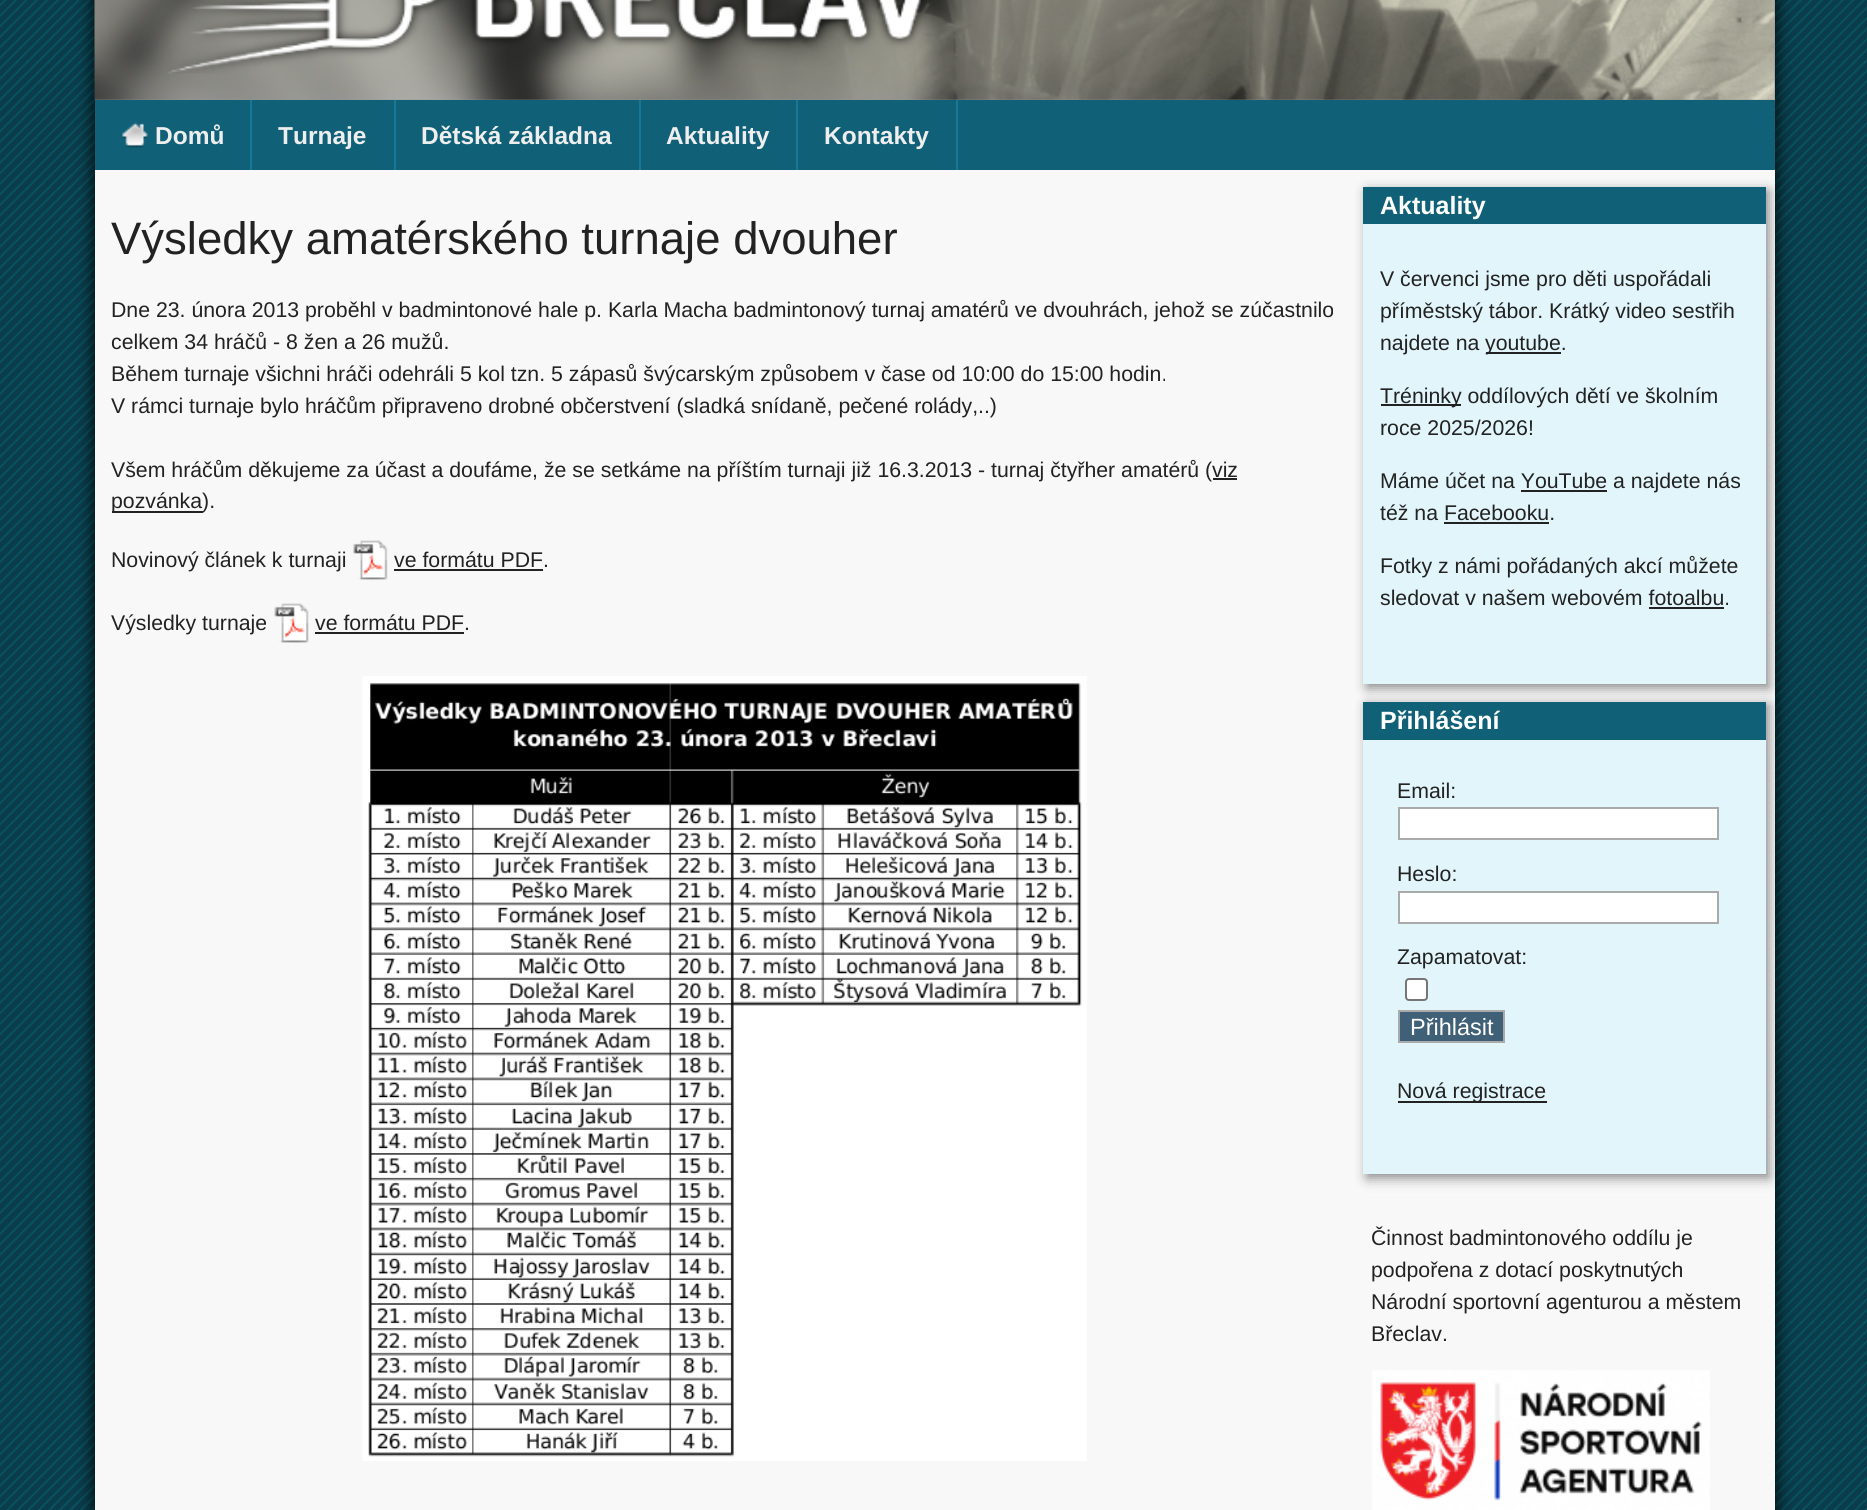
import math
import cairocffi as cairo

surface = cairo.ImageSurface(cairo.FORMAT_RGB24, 1867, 1510)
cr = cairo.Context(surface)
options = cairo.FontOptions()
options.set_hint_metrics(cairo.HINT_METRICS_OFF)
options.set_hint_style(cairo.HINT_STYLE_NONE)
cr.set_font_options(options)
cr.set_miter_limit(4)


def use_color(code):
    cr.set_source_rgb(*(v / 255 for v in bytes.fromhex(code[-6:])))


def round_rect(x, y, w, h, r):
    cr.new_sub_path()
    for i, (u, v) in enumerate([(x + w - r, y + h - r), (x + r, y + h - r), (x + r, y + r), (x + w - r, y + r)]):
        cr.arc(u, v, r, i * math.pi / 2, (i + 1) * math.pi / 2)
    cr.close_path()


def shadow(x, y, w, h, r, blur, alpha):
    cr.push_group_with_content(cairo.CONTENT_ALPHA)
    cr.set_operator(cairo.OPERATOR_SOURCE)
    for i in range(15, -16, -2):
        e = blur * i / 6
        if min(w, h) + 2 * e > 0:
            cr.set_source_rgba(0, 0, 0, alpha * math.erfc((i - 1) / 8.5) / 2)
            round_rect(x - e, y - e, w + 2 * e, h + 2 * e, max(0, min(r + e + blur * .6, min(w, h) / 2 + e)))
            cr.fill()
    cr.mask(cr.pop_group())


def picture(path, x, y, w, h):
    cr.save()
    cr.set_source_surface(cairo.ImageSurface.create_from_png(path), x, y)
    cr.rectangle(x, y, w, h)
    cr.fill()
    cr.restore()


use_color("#0a3c4b")
cr.paint()
picture("img1.png", 0, 0, 1867, 1510)
use_color("#000000")
shadow(95, -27, 1680, 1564, 0, 9, 1)
use_color("#999999")
cr.rectangle(95, 0, 1680, 100)
cr.fill()
picture("img2.png", 94, 0, 1681, 100)
picture("img3.png", 167, 0, 760, 74)
use_color("#106078")
cr.rectangle(95, 100, 1680, 70)
cr.fill()
use_color("#147896")
cr.rectangle(250, 100, 2, 70)
cr.fill()
picture("img4.png", 122, 122, 26, 26)
cr.select_font_face("Liberation Sans", cairo.FONT_SLANT_NORMAL, cairo.FONT_WEIGHT_BOLD)
cr.set_font_size(24.5)
use_color("#eeeeee")
cr.move_to(155, 144)
cr.show_text("Domů")
use_color("#147896")
cr.rectangle(394, 100, 2, 70)
cr.fill()
use_color("#eeeeee")
cr.move_to(278, 144)
cr.show_text("Turnaje")
use_color("#147896")
cr.rectangle(639, 100, 2, 70)
cr.fill()
use_color("#eeeeee")
cr.move_to(421, 144)
cr.show_text("Dětská základna")
use_color("#147896")
cr.rectangle(796, 100, 2, 70)
cr.fill()
use_color("#eeeeee")
cr.move_to(666, 144)
cr.show_text("Aktuality")
use_color("#147896")
cr.rectangle(956, 100, 2, 70)
cr.fill()
use_color("#eeeeee")
cr.move_to(824, 144)
cr.show_text("Kontakty")
use_color("#f8f8f8")
cr.rectangle(95, 170, 1680, 1340)
cr.fill()
cr.select_font_face("Liberation Sans")
cr.set_font_size(45.5)
use_color("#222222")
cr.move_to(111, 254)
cr.show_text("Výsledky amatérského turnaje dvouher")
cr.set_font_size(21.28)
cr.move_to(111, 317)
cr.show_text("Dne 23. února 2013 proběhl v badmintonové hale p. Karla Macha badmintonový turnaj amatérů ve dvouhrách, jehož se zúčastnilo")
cr.move_to(111, 349)
cr.show_text("celkem 34 hráčů - 8 žen a 26 mužů.")
cr.move_to(111, 381)
cr.show_text("Během turnaje všichni hráči odehráli 5 kol tzn. 5 zápasů švýcarským způsobem v čase od 10:00 do 15:00 hodin.")
cr.move_to(111, 413)
cr.show_text("V rámci turnaje bylo hráčům připraveno drobné občerstvení (sladká snídaně, pečené rolády,..)")
cr.move_to(111, 477)
cr.show_text("Všem hráčům děkujeme za účast a doufáme, že se setkáme na příštím turnaji již 16.3.2013 - turnaj čtyřher amatérů (")
cr.move_to(1212, 477)
cr.show_text("viz")
cr.rectangle(1213, 478, 24, 2)
cr.fill()
cr.rectangle(112, 511, 91, 2)
cr.fill()
cr.move_to(111, 508)
cr.show_text("pozvánka).")
cr.move_to(111, 567)
cr.show_text("Novinový článek k turnaji")
picture("img5.png", 353, 540, 35, 40)
cr.move_to(394, 567)
cr.show_text("ve formátu PDF.")
cr.rectangle(394, 569, 149, 2)
cr.fill()
cr.move_to(111, 630)
cr.show_text("Výsledky turnaje")
picture("img6.png", 274, 603, 35, 40)
cr.move_to(315, 630)
cr.show_text("ve formátu PDF.")
cr.rectangle(315, 632, 149, 2)
cr.fill()
picture("img7.png", 362, 676, 725, 785)
cr.save()
cr.rectangle(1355, 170, 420, 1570)
cr.clip()
use_color("#888888")
shadow(1367, 191, 402, 497, 0, 6, 1)
cr.restore()
use_color("#e1f5fb")
cr.rectangle(1363, 224, 403, 460)
cr.fill()
use_color("#106078")
cr.rectangle(1363, 187, 403, 37)
cr.fill()
cr.select_font_face("Liberation Sans", cairo.FONT_SLANT_NORMAL, cairo.FONT_WEIGHT_BOLD)
cr.set_font_size(25)
use_color("#ffffff")
cr.move_to(1380, 214)
cr.show_text("Aktuality")
cr.select_font_face("Liberation Sans")
cr.set_font_size(21.28)
use_color("#222222")
cr.move_to(1380, 286)
cr.show_text("V červenci jsme pro děti uspořádali")
cr.move_to(1380, 318)
cr.show_text("příměstský tábor. Krátký video sestřih")
cr.move_to(1380, 350)
cr.show_text("najdete na")
cr.rectangle(1486, 352, 75, 2)
cr.fill()
cr.move_to(1485, 350)
cr.show_text("youtube.")
cr.rectangle(1381, 404, 80, 2)
cr.fill()
cr.move_to(1380, 403)
cr.show_text("Tréninky oddílových dětí ve školním")
cr.move_to(1380, 435)
cr.show_text("roce 2025/2026!")
cr.move_to(1380, 488)
cr.show_text("Máme účet na YouTube a najdete nás")
cr.rectangle(1521, 490, 86, 2)
cr.fill()
cr.move_to(1380, 520)
cr.show_text("též na Facebooku.")
cr.rectangle(1444, 522, 105, 2)
cr.fill()
cr.move_to(1380, 573)
cr.show_text("Fotky z námi pořádaných akcí můžete")
cr.move_to(1380, 605)
cr.show_text("sledovat v našem webovém fotoalbu.")
cr.rectangle(1649, 607, 75, 2)
cr.fill()
cr.save()
cr.rectangle(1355, 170, 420, 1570)
cr.clip()
use_color("#888888")
shadow(1367, 705, 402, 473, 0, 6, 1)
cr.restore()
use_color("#e1f5fb")
cr.rectangle(1363, 740, 403, 434)
cr.fill()
use_color("#106078")
cr.rectangle(1363, 702, 403, 38)
cr.fill()
cr.select_font_face("Liberation Sans", cairo.FONT_SLANT_NORMAL, cairo.FONT_WEIGHT_BOLD)
cr.set_font_size(25)
use_color("#ffffff")
cr.move_to(1380, 729)
cr.show_text("Přihlášení")
cr.select_font_face("Liberation Sans")
cr.set_font_size(21.28)
use_color("#222222")
cr.move_to(1397, 798)
cr.show_text("Email:")
use_color("#ffffff")
cr.rectangle(1399, 808, 319, 31)
cr.fill_preserve()
use_color("#aaaaaa")
cr.stroke()
use_color("#222222")
cr.move_to(1397, 881)
cr.show_text("Heslo:")
use_color("#ffffff")
cr.rectangle(1399, 892, 319, 31)
cr.fill_preserve()
use_color("#aaaaaa")
cr.stroke()
use_color("#222222")
cr.move_to(1397, 964)
cr.show_text("Zapamatovat:")
use_color("#ffffff")
round_rect(1406, 979, 21, 21, 3)
cr.fill_preserve()
use_color("#767676")
cr.stroke()
use_color("#406078")
cr.rectangle(1399, 1011, 105, 31)
cr.fill_preserve()
use_color("#aaaaaa")
cr.stroke()
cr.set_font_size(23.5)
use_color("#ffffff")
cr.move_to(1410, 1035)
cr.show_text("Přihlásit")
use_color("#222222")
cr.rectangle(1398, 1101, 149, 2)
cr.fill()
cr.set_font_size(21.28)
cr.move_to(1397, 1098)
cr.show_text("Nová registrace")
cr.move_to(1371, 1245)
cr.show_text("Činnost badmintonového oddílu je")
cr.move_to(1371, 1277)
cr.show_text("podpořena z dotací poskytnutých")
cr.move_to(1371, 1309)
cr.show_text("Národní sportovní agenturou a městem")
cr.move_to(1371, 1341)
cr.show_text("Břeclav.")
picture("img8.png", 1372, 1370, 338, 140)
surface.write_to_png("result.png")
